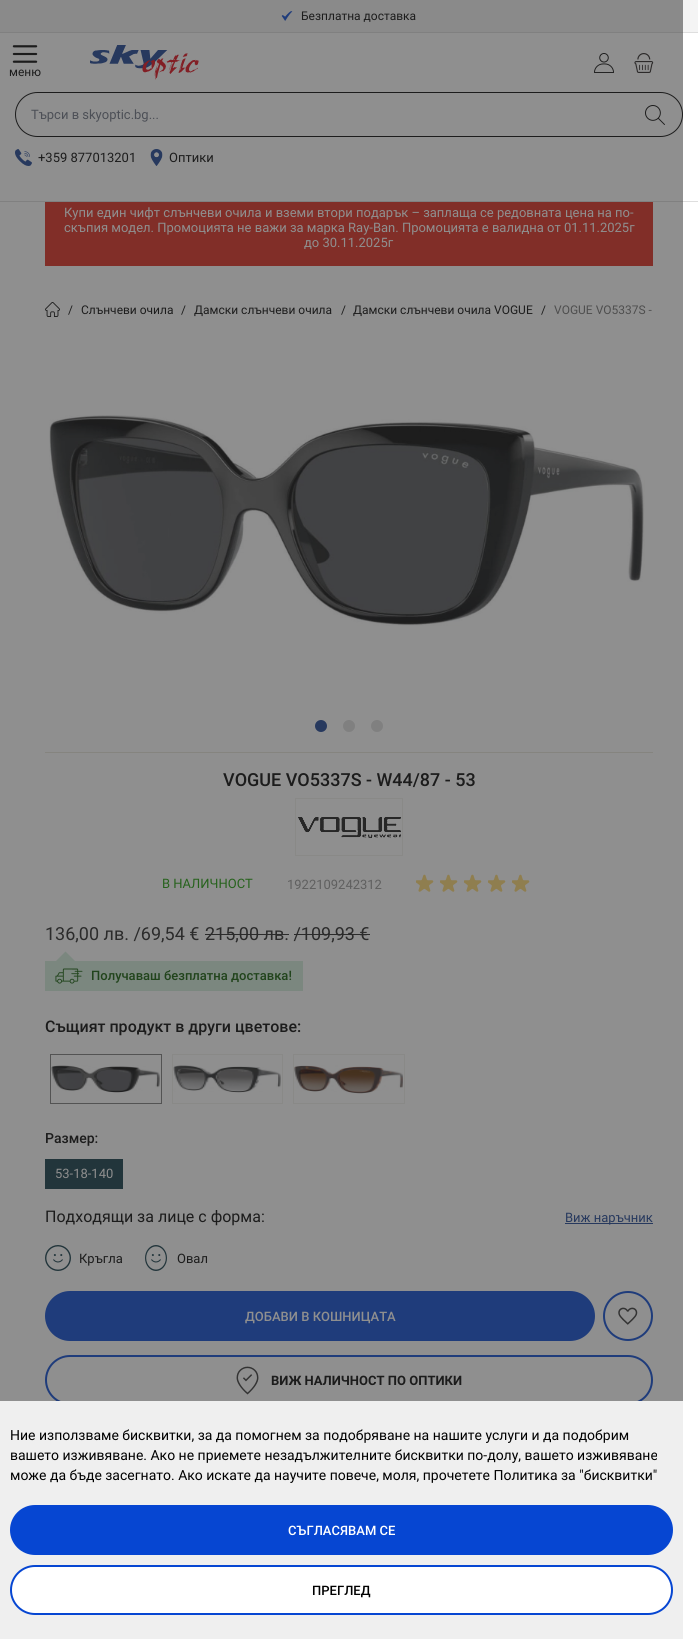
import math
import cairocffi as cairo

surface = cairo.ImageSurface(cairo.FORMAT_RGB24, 698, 1639)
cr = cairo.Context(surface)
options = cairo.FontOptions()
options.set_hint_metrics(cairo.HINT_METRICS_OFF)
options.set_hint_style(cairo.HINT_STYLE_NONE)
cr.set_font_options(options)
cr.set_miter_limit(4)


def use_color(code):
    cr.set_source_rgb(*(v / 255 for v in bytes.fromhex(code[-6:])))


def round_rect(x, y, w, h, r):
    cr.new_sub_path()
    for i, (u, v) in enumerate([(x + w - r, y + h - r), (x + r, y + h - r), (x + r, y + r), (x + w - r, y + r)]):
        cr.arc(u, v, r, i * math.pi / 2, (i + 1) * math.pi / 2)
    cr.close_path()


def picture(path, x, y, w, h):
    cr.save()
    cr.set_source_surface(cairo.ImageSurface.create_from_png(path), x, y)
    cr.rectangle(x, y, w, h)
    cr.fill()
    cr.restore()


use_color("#ffffff")
cr.paint()
use_color("#8f8f8f")
cr.rectangle(0, 33, 683, 1368)
cr.fill()
use_color("#f4f4f4")
cr.rectangle(683, 0, 15, 32)
cr.fill()
use_color("#8a8a8a")
cr.rectangle(0, 0, 683, 32)
cr.fill()
use_color("#dedede")
cr.rectangle(683, 32, 15, 1)
cr.fill()
use_color("#808080")
cr.rectangle(0, 32, 683, 1)
cr.fill()
picture("img1.png", 281, 11, 12, 10)
cr.select_font_face("Roboto")
cr.set_font_size(12)
use_color("#1c1c1c")
cr.move_to(301, 20)
cr.show_text("Безплатна доставка")
picture("img2.png", 12, 45, 26, 18)
cr.move_to(9, 76)
cr.show_text("меню")
picture("img3.png", 90, 45, 109, 35)
picture("img4.png", 594, 53, 20, 20)
picture("img5.png", 634, 53, 20, 20)
use_color("#dedede")
cr.rectangle(683, 201, 15, 1)
cr.fill()
use_color("#808080")
cr.rectangle(0, 201, 683, 1)
cr.fill()
round_rect(15.5, 92.5, 667, 44, 22)
use_color("#1c1c1c")
cr.set_line_width(1)
cr.stroke()
cr.set_font_size(13)
use_color("#4c4f56")
cr.move_to(31, 119)
cr.show_text("Търси в skyoptic.bg...")
picture("img6.png", 645, 105, 20, 20)
picture("img7.png", 15, 149, 17, 17)
use_color("#1c1c1c")
cr.move_to(38, 162)
cr.show_text("+359 877013201")
picture("img8.png", 150, 149, 13, 17)
cr.move_to(169, 162)
cr.show_text("Оптики")
use_color("#812e28")
cr.rectangle(45, 202, 608, 64)
cr.fill()
use_color("#8f8f8f")
cr.move_to(64, 217)
cr.show_text("Купи един чифт слънчеви очила и вземи втори подарък – заплаща се редовната цена на по-")
cr.move_to(64, 232)
cr.show_text("скъпия модел. Промоцията не важи за марка Ray-Ban. Промоцията е валидна от 01.11.2025г")
cr.move_to(304, 247)
cr.show_text("до 30.11.2025г")
picture("img9.png", 45, 302, 15, 15)
cr.set_font_size(12)
use_color("#1c1c1c")
cr.move_to(68, 314)
cr.show_text("/")
cr.move_to(81, 314)
cr.show_text("Слънчеви очила")
cr.move_to(181, 314)
cr.show_text("/")
cr.move_to(194, 314)
cr.show_text("Дамски слънчеви очила")
cr.move_to(341, 314)
cr.show_text("/")
cr.move_to(353, 314)
cr.show_text("Дамски слънчеви очила VOGUE")
cr.move_to(541, 314)
cr.show_text("/")
use_color("#4e4e4e")
cr.move_to(554, 314)
cr.show_text("VOGUE VO5337S -")
picture("img10.png", 49, 415, 596, 211)
use_color("#27395e")
cr.arc(321, 726, 6, 0, 2 * math.pi)
cr.fill()
use_color("#808080")
cr.arc(349, 726, 6, 0, 2 * math.pi)
cr.fill()
cr.arc(377, 726, 6, 0, 2 * math.pi)
cr.fill()
use_color("#85847f")
cr.rectangle(45, 752, 608, 1)
cr.fill()
cr.select_font_face("Roboto Medium")
cr.set_font_size(18)
use_color("#1c1c1c")
cr.move_to(223, 786)
cr.show_text("VOGUE VO5337S - W44/87 - 53")
cr.rectangle(295.5, 798.5, 107, 57)
use_color("#898987")
cr.stroke()
picture("img11.png", 298, 817, 103, 21)
cr.select_font_face("Roboto")
cr.set_font_size(13)
use_color("#26621c")
cr.move_to(162, 888)
cr.show_text("В НАЛИЧНОСТ")
use_color("#5f5f5f")
cr.move_to(287, 889)
cr.show_text("1922109242312")
picture("img12.png", 416, 874, 18, 18)
picture("img12.png", 440, 874, 18, 18)
picture("img12.png", 464, 874, 18, 18)
picture("img12.png", 488, 874, 18, 18)
picture("img12.png", 512, 874, 18, 18)
cr.set_font_size(18)
use_color("#2b2b2b")
cr.move_to(45, 940)
cr.show_text("136,00 лв. /69,54 €")
cr.move_to(205, 940)
cr.show_text("215,00 лв. /109,93 €")
cr.rectangle(205, 934, 84, 1)
cr.fill()
cr.rectangle(294, 934, 76, 1)
cr.fill()
use_color("#7b877f")
cr.rectangle(45, 961, 258, 30)
cr.fill()
cr.new_path()
cr.move_to(65.5, 951.5)
cr.line_to(75.5, 961.5)
cr.line_to(55.5, 961.5)
cr.close_path()
cr.fill()
picture("img13.png", 55, 968, 28, 16)
cr.select_font_face("Roboto Medium")
cr.set_font_size(13)
use_color("#21441c")
cr.move_to(91, 980)
cr.show_text("Получаваш безплатна доставка!")
cr.set_font_size(16)
use_color("#1c1c1c")
cr.move_to(45, 1032)
cr.show_text("Същият продукт в други цветове:")
cr.rectangle(50.5, 1054.5, 111, 49)
use_color("#535353")
cr.stroke()
picture("img14.png", 51, 1065, 109, 28)
cr.rectangle(172.5, 1054.5, 110, 49)
use_color("#898987")
cr.stroke()
picture("img15.png", 173, 1065, 108, 28)
cr.rectangle(293.5, 1054.5, 111, 49)
cr.stroke()
picture("img16.png", 294, 1065, 109, 29)
cr.set_font_size(14)
use_color("#1c1c1c")
cr.move_to(45, 1143)
cr.show_text("Размер:")
use_color("#22353b")
cr.rectangle(45, 1159, 78, 30)
cr.fill()
cr.select_font_face("Roboto")
cr.set_font_size(13)
use_color("#8f8f8f")
cr.move_to(55, 1178)
cr.show_text("53-18-140")
cr.set_font_size(16)
use_color("#1c1c1c")
cr.move_to(45, 1222)
cr.show_text("Подходящи за лице с форма:")
use_color("#27395e")
cr.rectangle(565, 1223, 88, 1)
cr.fill()
cr.set_font_size(13)
cr.move_to(565, 1222)
cr.show_text("Виж наръчник")
picture("img17.png", 45, 1245, 26, 26)
use_color("#1c1c1c")
cr.move_to(79, 1263)
cr.show_text("Кръгла")
picture("img18.png", 145, 1245, 22, 26)
cr.move_to(177, 1263)
cr.show_text("Овал")
use_color("#1f3c7b")
round_rect(45, 1291, 550, 50, 25)
cr.fill()
cr.select_font_face("Roboto Medium")
use_color("#8f8f8f")
cr.move_to(245, 1321)
cr.show_text("ДОБАВИ В КОШНИЦАТА")
cr.new_path()
cr.arc(628, 1316, 24, 0, 2 * math.pi)
use_color("#1f3c7b")
cr.set_line_width(2)
cr.stroke()
picture("img19.png", 618, 1307, 20, 18)
round_rect(46, 1356, 606, 48, 24)
cr.stroke()
picture("img20.png", 236, 1366, 23, 29)
cr.select_font_face("Roboto", cairo.FONT_SLANT_NORMAL, cairo.FONT_WEIGHT_BOLD)
use_color("#1c1c1c")
cr.move_to(271, 1385)
cr.show_text("ВИЖ НАЛИЧНОСТ ПО ОПТИКИ")
use_color("#efefef")
cr.rectangle(0, 1401, 683, 238)
cr.fill()
cr.select_font_face("Roboto")
cr.set_font_size(14)
use_color("#000000")
cr.move_to(10, 1440)
cr.show_text("Ние използваме бисквитки, за да помогнем за подобряване на нашите услуги и да подобрим")
cr.move_to(10, 1460)
cr.show_text("вашето изживяване. Ако не приемете незадължителните бисквитки по-долу, вашето изживяване")
cr.move_to(10, 1480)
cr.show_text("може да бъде засегнато. Ако искате да научите повече, моля, прочетете Политика за \"бисквитки\"")
use_color("#0646d2")
round_rect(10, 1505, 663, 50, 25)
cr.fill()
cr.select_font_face("Roboto Medium")
cr.set_font_size(13)
use_color("#ffffff")
cr.move_to(288, 1535)
cr.show_text("СЪГЛАСЯВАМ СЕ")
round_rect(11, 1566, 661, 48, 24)
cr.fill_preserve()
use_color("#0646d2")
cr.stroke()
use_color("#000000")
cr.move_to(312, 1595)
cr.show_text("ПРЕГЛЕД")
surface.write_to_png("result.png")
